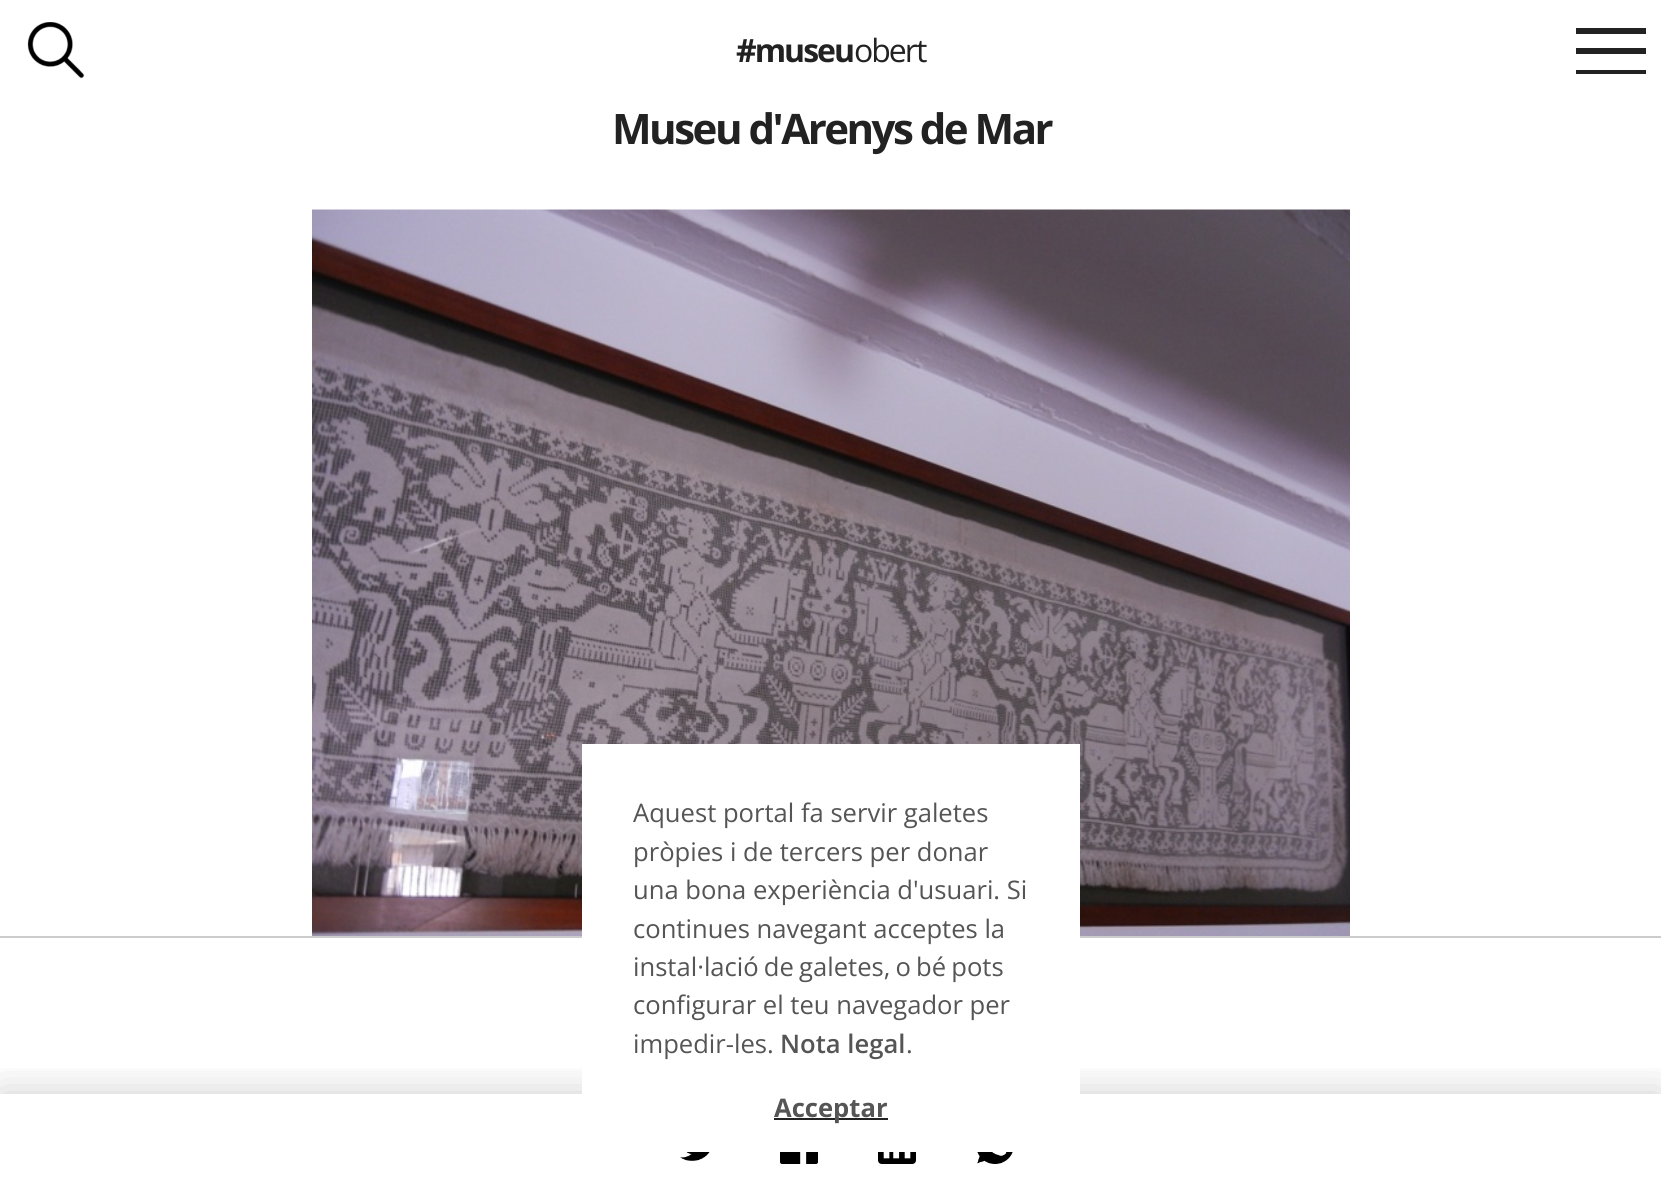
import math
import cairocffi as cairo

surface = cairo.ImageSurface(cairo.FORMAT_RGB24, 1661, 1197)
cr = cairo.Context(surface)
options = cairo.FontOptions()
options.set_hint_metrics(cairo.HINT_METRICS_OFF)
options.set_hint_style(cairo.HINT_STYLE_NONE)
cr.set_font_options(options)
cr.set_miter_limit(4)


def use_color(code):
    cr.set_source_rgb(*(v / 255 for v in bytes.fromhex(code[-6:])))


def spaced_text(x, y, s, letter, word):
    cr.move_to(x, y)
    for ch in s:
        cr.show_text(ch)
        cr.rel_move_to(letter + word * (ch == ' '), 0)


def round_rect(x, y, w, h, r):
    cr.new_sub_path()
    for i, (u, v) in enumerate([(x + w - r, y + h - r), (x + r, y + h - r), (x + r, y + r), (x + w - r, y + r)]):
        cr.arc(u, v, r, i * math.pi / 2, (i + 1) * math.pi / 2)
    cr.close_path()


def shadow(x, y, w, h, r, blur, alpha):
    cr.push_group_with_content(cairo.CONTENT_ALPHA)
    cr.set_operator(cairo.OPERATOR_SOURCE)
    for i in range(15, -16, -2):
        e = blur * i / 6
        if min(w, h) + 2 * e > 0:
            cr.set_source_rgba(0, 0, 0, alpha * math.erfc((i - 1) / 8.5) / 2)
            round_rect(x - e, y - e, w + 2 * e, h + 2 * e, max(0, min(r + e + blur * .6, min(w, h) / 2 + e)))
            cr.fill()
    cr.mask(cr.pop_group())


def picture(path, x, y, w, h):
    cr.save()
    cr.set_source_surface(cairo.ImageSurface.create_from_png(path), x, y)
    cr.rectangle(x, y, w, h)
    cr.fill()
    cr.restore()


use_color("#ffffff")
cr.paint()
picture("img1.png", 27, 22, 58, 57)
use_color("#222222")
cr.rectangle(1576, 48, 70, 6)
cr.fill()
cr.rectangle(1576, 28, 70, 6)
cr.fill()
cr.rectangle(1576, 70, 70, 4)
cr.fill()
cr.select_font_face("Open Sans", cairo.FONT_SLANT_NORMAL, cairo.FONT_WEIGHT_BOLD)
cr.set_font_size(32)
spaced_text(736, 62, "#museu", -2, 0)
cr.select_font_face("Open Sans")
spaced_text(854, 62, "obert", -2, 0)
cr.select_font_face("Open Sans", cairo.FONT_SLANT_NORMAL, cairo.FONT_WEIGHT_BOLD)
cr.set_font_size(42)
spaced_text(612, 144, "Museu d'Arenys de Mar", -2.5, 0)
picture("img2.png", 312, 209, 1038, 727)
use_color("#cccccc")
cr.rectangle(0, 936, 1661, 2)
cr.fill()
cr.save()
cr.rectangle(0, 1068, 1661, 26)
cr.clip()
use_color("#000000")
shadow(0, 1094, 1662, 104, 0, 20, 0.2)
cr.restore()
picture("img3.png", 680, 1152, 30, 9)
picture("img4.png", 780, 1152, 38, 12)
picture("img5.png", 878, 1152, 38, 12)
picture("img6.png", 977, 1152, 36, 12)
use_color("#ffffff")
cr.rectangle(582, 744, 498, 350)
cr.fill()
cr.select_font_face("Open Sans")
cr.set_font_size(25.6)
use_color("#555555")
cr.move_to(633, 822)
cr.show_text("Aquest portal fa servir galetes")
cr.move_to(633, 861)
cr.show_text("pròpies i de tercers per donar")
cr.move_to(633, 899)
cr.show_text("una bona experiència d'usuari. Si")
cr.move_to(633, 938)
cr.show_text("continues navegant acceptes la")
spaced_text(633, 976, "instal·lació de galetes, o bé pots", 0, -1.5)
cr.move_to(633, 1014)
cr.show_text("configurar el teu navegador per")
cr.move_to(633, 1053)
cr.show_text("impedir-les.")
cr.select_font_face("Open Sans SemiBold")
cr.move_to(780, 1053)
cr.show_text("Nota legal")
cr.select_font_face("Open Sans")
cr.move_to(906, 1053)
cr.show_text(".")
use_color("#222222")
cr.rectangle(774, 1118, 114, 2)
cr.fill()
cr.select_font_face("Open Sans", cairo.FONT_SLANT_NORMAL, cairo.FONT_WEIGHT_BOLD)
use_color("#555555")
cr.move_to(774, 1117)
cr.show_text("Acceptar")
surface.write_to_png("result.png")
